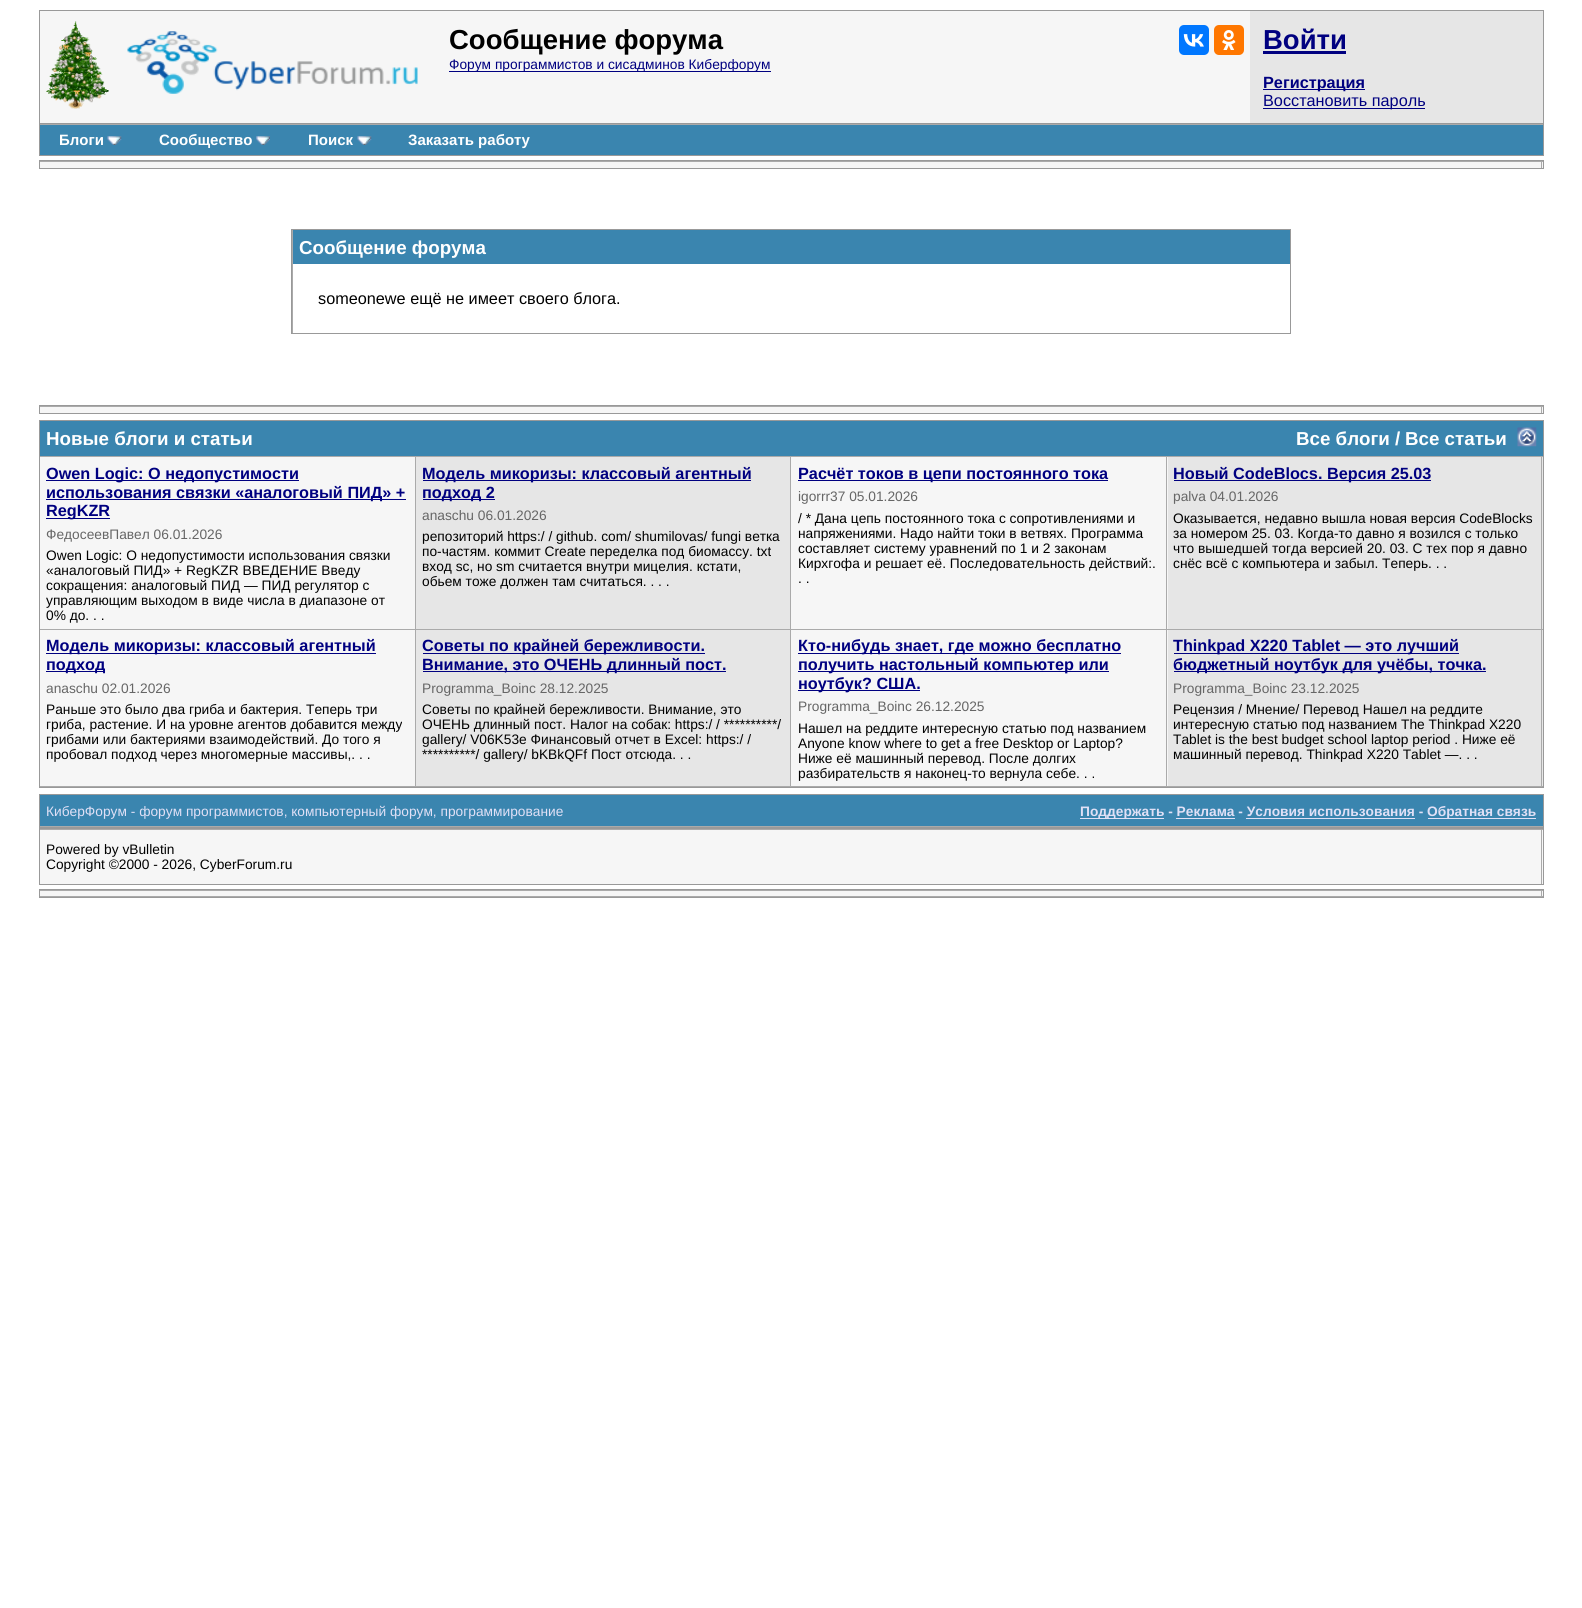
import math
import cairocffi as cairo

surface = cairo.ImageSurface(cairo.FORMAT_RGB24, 1582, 1608)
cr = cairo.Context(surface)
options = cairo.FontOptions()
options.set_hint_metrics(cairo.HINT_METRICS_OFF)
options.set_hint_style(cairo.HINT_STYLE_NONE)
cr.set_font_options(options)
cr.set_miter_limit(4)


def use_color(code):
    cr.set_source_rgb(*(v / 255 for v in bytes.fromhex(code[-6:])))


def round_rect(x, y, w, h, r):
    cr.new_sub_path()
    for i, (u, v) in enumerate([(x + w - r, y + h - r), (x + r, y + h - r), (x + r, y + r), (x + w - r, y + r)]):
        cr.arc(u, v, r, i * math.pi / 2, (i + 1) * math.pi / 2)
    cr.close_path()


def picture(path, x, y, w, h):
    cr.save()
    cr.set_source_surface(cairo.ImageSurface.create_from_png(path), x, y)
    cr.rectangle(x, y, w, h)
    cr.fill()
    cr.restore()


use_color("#ffffff")
cr.paint()
cr.rectangle(39.5, 10.5, 1504, 113)
use_color("#999999")
cr.set_line_width(1)
cr.stroke()
use_color("#f6f6f6")
cr.rectangle(40, 11, 1210, 112)
cr.fill()
picture("img1.png", 46, 21, 63, 88)
picture("img2.png", 127, 31, 291, 63)
cr.select_font_face("Liberation Sans", cairo.FONT_SLANT_NORMAL, cairo.FONT_WEIGHT_BOLD)
cr.set_font_size(27.5)
use_color("#000000")
cr.move_to(449, 49)
cr.show_text("Сообщение форума")
use_color("#0077ff")
round_rect(1179, 25, 30, 30, 5)
cr.fill()
picture("img3.png", 1183, 34, 21, 13)
use_color("#ff7700")
round_rect(1214, 25, 30, 30, 5)
cr.fill()
picture("img4.png", 1222, 30, 14, 20)
use_color("#000080")
cr.rectangle(449, 71, 322, 1)
cr.fill()
cr.select_font_face("Liberation Sans")
cr.set_font_size(13.75)
cr.move_to(449, 69)
cr.show_text("Форум программистов и сисадминов Киберфорум")
use_color("#e6e6e6")
cr.rectangle(1250, 11, 293, 112)
cr.fill()
cr.select_font_face("Liberation Sans", cairo.FONT_SLANT_NORMAL, cairo.FONT_WEIGHT_BOLD)
cr.set_font_size(27.5)
use_color("#000080")
cr.move_to(1263, 49)
cr.show_text("Войти")
cr.rectangle(1263, 51, 83, 3)
cr.fill()
cr.rectangle(1263, 89, 102, 1)
cr.fill()
cr.set_font_size(16.25)
cr.move_to(1263, 88)
cr.show_text("Регистрация")
cr.rectangle(1263, 108, 162, 1)
cr.fill()
cr.select_font_face("Liberation Sans")
cr.move_to(1263, 106)
cr.show_text("Восстановить пароль")
use_color("#999999")
cr.rectangle(1543, 124, 1, 32)
cr.fill()
cr.rectangle(39, 155, 1505, 1)
cr.fill()
cr.rectangle(39, 124, 1, 32)
cr.fill()
use_color("#3a85af")
cr.rectangle(40, 125, 1503, 30)
cr.fill()
use_color("#aaaaaa")
cr.rectangle(40, 124, 1503, 1)
cr.fill()
cr.select_font_face("Liberation Sans", cairo.FONT_SLANT_NORMAL, cairo.FONT_WEIGHT_BOLD)
cr.set_font_size(15)
use_color("#ffffff")
cr.move_to(59, 145)
cr.show_text("Блоги")
picture("img5.png", 107, 136, 15, 9)
cr.move_to(159, 145)
cr.show_text("Сообщество")
picture("img6.png", 256, 136, 14, 9)
cr.move_to(308, 145)
cr.show_text("Поиск")
picture("img7.png", 357, 136, 15, 9)
cr.move_to(408, 145)
cr.show_text("Заказать работу")
cr.rectangle(39.5, 160.5, 1504, 8)
use_color("#999999")
cr.stroke()
use_color("#f6f6f6")
cr.rectangle(40, 162, 1503, 6)
cr.fill()
use_color("#aaaaaa")
cr.rectangle(40, 161, 1503, 1)
cr.fill()
cr.rectangle(1541, 161, 1, 7)
cr.fill()
cr.rectangle(292, 230, 1, 103)
cr.fill()
cr.rectangle(291.5, 229.5, 999, 104)
use_color("#999999")
cr.stroke()
use_color("#3a85af")
cr.rectangle(293, 230, 997, 34)
cr.fill()
cr.set_font_size(18.75)
use_color("#ffffff")
cr.move_to(299, 254)
cr.show_text("Сообщение форума")
cr.select_font_face("Liberation Sans")
cr.set_font_size(16.25)
use_color("#000000")
cr.move_to(318, 304)
cr.show_text("someonewe ещё не имеет своего блога.")
cr.rectangle(39.5, 405.5, 1504, 8)
use_color("#999999")
cr.stroke()
use_color("#f6f6f6")
cr.rectangle(40, 407, 1503, 6)
cr.fill()
use_color("#aaaaaa")
cr.rectangle(40, 406, 1503, 1)
cr.fill()
cr.rectangle(1541, 406, 1, 7)
cr.fill()
cr.rectangle(40, 786, 1503, 1)
cr.fill()
cr.rectangle(39.5, 420.5, 1504, 367)
use_color("#999999")
cr.stroke()
use_color("#3a85af")
cr.rectangle(40, 421, 1503, 35)
cr.fill()
cr.select_font_face("Liberation Sans", cairo.FONT_SLANT_NORMAL, cairo.FONT_WEIGHT_BOLD)
cr.set_font_size(18.75)
use_color("#ffffff")
cr.move_to(46, 445)
cr.show_text("Новые блоги и статьи")
cr.move_to(1296, 445)
cr.show_text("Все блоги /")
cr.move_to(1405, 445)
cr.show_text("Все статьи")
picture("img8.png", 1517, 427, 20, 20)
use_color("#f6f6f6")
cr.rectangle(40, 457, 375, 172)
cr.fill()
use_color("#aaaaaa")
cr.rectangle(40, 456, 1503, 1)
cr.fill()
cr.rectangle(415, 456, 1, 173)
cr.fill()
use_color("#000080")
cr.rectangle(46, 480, 253, 1)
cr.fill()
cr.set_font_size(16.25)
cr.move_to(46, 479)
cr.show_text("Owen Logic: О недопустимости")
cr.rectangle(46, 499, 360, 1)
cr.fill()
cr.move_to(46, 498)
cr.show_text("использования связки «аналоговый ПИД» +")
cr.rectangle(46, 518, 64, 1)
cr.fill()
cr.move_to(46, 516)
cr.show_text("RegKZR")
cr.select_font_face("Liberation Sans")
cr.set_font_size(13.75)
use_color("#666666")
cr.move_to(46, 539)
cr.show_text("ФедосеевПавел 06.01.2026")
use_color("#000000")
cr.move_to(46, 560)
cr.show_text("Owen Logic: О недопустимости использования связки")
cr.move_to(46, 575)
cr.show_text("«аналоговый ПИД» + RegKZR ВВЕДЕНИЕ Введу")
cr.move_to(46, 590)
cr.show_text("сокращения: аналоговый ПИД — ПИД регулятор с")
cr.move_to(46, 605)
cr.show_text("управляющим выходом в виде числа в диапазоне от")
cr.move_to(46, 620)
cr.show_text("0% до. . .")
use_color("#e6e6e6")
cr.rectangle(416, 457, 374, 172)
cr.fill()
use_color("#aaaaaa")
cr.rectangle(790, 456, 1, 173)
cr.fill()
use_color("#000080")
cr.rectangle(423, 480, 328, 1)
cr.fill()
cr.select_font_face("Liberation Sans", cairo.FONT_SLANT_NORMAL, cairo.FONT_WEIGHT_BOLD)
cr.set_font_size(16.25)
cr.move_to(422, 479)
cr.show_text("Модель микоризы: классовый агентный")
cr.rectangle(423, 499, 72, 1)
cr.fill()
cr.move_to(422, 498)
cr.show_text("подход 2")
cr.select_font_face("Liberation Sans")
cr.set_font_size(13.75)
use_color("#666666")
cr.move_to(422, 520)
cr.show_text("anaschu 06.01.2026")
use_color("#000000")
cr.move_to(422, 541)
cr.show_text("репозиторий https:/ / github. com/ shumilovas/ fungi ветка")
cr.move_to(422, 556)
cr.show_text("по-частям. коммит Create переделка под биомассу. txt")
cr.move_to(422, 571)
cr.show_text("вход sc, но sm считается внутри мицелия. кстати,")
cr.move_to(422, 586)
cr.show_text("обьем тоже должен там считаться. . . .")
use_color("#f6f6f6")
cr.rectangle(791, 457, 377, 172)
cr.fill()
use_color("#aaaaaa")
cr.rectangle(1166, 456, 1, 173)
cr.fill()
use_color("#000080")
cr.rectangle(798, 480, 310, 1)
cr.fill()
cr.select_font_face("Liberation Sans", cairo.FONT_SLANT_NORMAL, cairo.FONT_WEIGHT_BOLD)
cr.set_font_size(16.25)
cr.move_to(798, 479)
cr.show_text("Расчёт токов в цепи постоянного тока")
cr.select_font_face("Liberation Sans")
cr.set_font_size(13.75)
use_color("#666666")
cr.move_to(798, 501)
cr.show_text("igorrr37 05.01.2026")
use_color("#000000")
cr.move_to(798, 523)
cr.show_text("/ * Дана цепь постоянного тока с сопротивлениями и")
cr.move_to(798, 538)
cr.show_text("напряжениями. Надо найти токи в ветвях. Программа")
cr.move_to(798, 553)
cr.show_text("составляет систему уравнений по 1 и 2 законам")
cr.move_to(798, 568)
cr.show_text("Кирхгофа и решает её. Последовательность действий:.")
cr.move_to(798, 583)
cr.show_text(". .")
use_color("#e6e6e6")
cr.rectangle(1168, 457, 375, 172)
cr.fill()
use_color("#aaaaaa")
cr.rectangle(1541, 456, 1, 173)
cr.fill()
use_color("#000080")
cr.rectangle(1174, 480, 257, 1)
cr.fill()
cr.select_font_face("Liberation Sans", cairo.FONT_SLANT_NORMAL, cairo.FONT_WEIGHT_BOLD)
cr.set_font_size(16.25)
cr.move_to(1173, 479)
cr.show_text("Новый CodeBlocs. Версия 25.03")
cr.select_font_face("Liberation Sans")
cr.set_font_size(13.75)
use_color("#666666")
cr.move_to(1173, 501)
cr.show_text("palva 04.01.2026")
use_color("#000000")
cr.move_to(1173, 523)
cr.show_text("Оказывается, недавно вышла новая версия CodeBlocks")
cr.move_to(1173, 538)
cr.show_text("за номером 25. 03. Когда-то давно я возился с только")
cr.move_to(1173, 553)
cr.show_text("что вышедшей тогда версией 20. 03. С тех пор я давно")
cr.move_to(1173, 568)
cr.show_text("снёс всё с компьютера и забыл. Теперь. . .")
use_color("#f6f6f6")
cr.rectangle(40, 630, 375, 156)
cr.fill()
use_color("#aaaaaa")
cr.rectangle(40, 629, 1503, 1)
cr.fill()
cr.rectangle(415, 629, 1, 157)
cr.fill()
use_color("#000080")
cr.rectangle(46, 653, 330, 1)
cr.fill()
cr.select_font_face("Liberation Sans", cairo.FONT_SLANT_NORMAL, cairo.FONT_WEIGHT_BOLD)
cr.set_font_size(16.25)
cr.move_to(46, 651)
cr.show_text("Модель микоризы: классовый агентный")
cr.rectangle(46, 671, 59, 1)
cr.fill()
cr.move_to(46, 670)
cr.show_text("подход")
cr.select_font_face("Liberation Sans")
cr.set_font_size(13.75)
use_color("#666666")
cr.move_to(46, 693)
cr.show_text("anaschu 02.01.2026")
use_color("#000000")
cr.move_to(46, 714)
cr.show_text("Раньше это было два гриба и бактерия. Теперь три")
cr.move_to(46, 729)
cr.show_text("гриба, растение. И на уровне агентов добавится между")
cr.move_to(46, 744)
cr.show_text("грибами или бактериями взаимодействий. До того я")
cr.move_to(46, 759)
cr.show_text("пробовал подход через многомерные массивы,. . .")
use_color("#e6e6e6")
cr.rectangle(416, 630, 374, 156)
cr.fill()
use_color("#aaaaaa")
cr.rectangle(790, 629, 1, 157)
cr.fill()
use_color("#000080")
cr.rectangle(423, 653, 282, 1)
cr.fill()
cr.select_font_face("Liberation Sans", cairo.FONT_SLANT_NORMAL, cairo.FONT_WEIGHT_BOLD)
cr.set_font_size(16.25)
cr.move_to(422, 651)
cr.show_text("Советы по крайней бережливости.")
cr.rectangle(423, 671, 303, 1)
cr.fill()
cr.move_to(422, 670)
cr.show_text("Внимание, это ОЧЕНЬ длинный пост.")
cr.select_font_face("Liberation Sans")
cr.set_font_size(13.75)
use_color("#666666")
cr.move_to(422, 693)
cr.show_text("Programma_Boinc 28.12.2025")
use_color("#000000")
cr.move_to(422, 714)
cr.show_text("Советы по крайней бережливости. Внимание, это")
cr.move_to(422, 729)
cr.show_text("ОЧЕНЬ длинный пост. Налог на собак: https:/ / **********/")
cr.move_to(422, 744)
cr.show_text("gallery/ V06K53e Финансовый отчет в Excel: https:/ /")
cr.move_to(422, 759)
cr.show_text("**********/ gallery/ bKBkQFf Пост отсюда. . .")
use_color("#f6f6f6")
cr.rectangle(791, 630, 377, 156)
cr.fill()
use_color("#aaaaaa")
cr.rectangle(1166, 629, 1, 157)
cr.fill()
use_color("#000080")
cr.rectangle(798, 653, 323, 1)
cr.fill()
cr.select_font_face("Liberation Sans", cairo.FONT_SLANT_NORMAL, cairo.FONT_WEIGHT_BOLD)
cr.set_font_size(16.25)
cr.move_to(798, 651)
cr.show_text("Кто-нибудь знает, где можно бесплатно")
cr.rectangle(798, 671, 311, 1)
cr.fill()
cr.move_to(798, 670)
cr.show_text("получить настольный компьютер или")
cr.rectangle(798, 690, 122, 1)
cr.fill()
cr.move_to(798, 689)
cr.show_text("ноутбук? США.")
cr.select_font_face("Liberation Sans")
cr.set_font_size(13.75)
use_color("#666666")
cr.move_to(798, 711)
cr.show_text("Programma_Boinc 26.12.2025")
use_color("#000000")
cr.move_to(798, 733)
cr.show_text("Нашел на реддите интересную статью под названием")
cr.move_to(798, 748)
cr.show_text("Anyone know where to get a free Desktop or Laptop?")
cr.move_to(798, 763)
cr.show_text("Ниже её машинный перевод. После долгих")
cr.move_to(798, 778)
cr.show_text("разбирательств я наконец-то вернула себе. . .")
use_color("#e6e6e6")
cr.rectangle(1168, 630, 375, 156)
cr.fill()
use_color("#aaaaaa")
cr.rectangle(1541, 629, 1, 157)
cr.fill()
use_color("#000080")
cr.rectangle(1174, 653, 285, 1)
cr.fill()
cr.select_font_face("Liberation Sans", cairo.FONT_SLANT_NORMAL, cairo.FONT_WEIGHT_BOLD)
cr.set_font_size(16.25)
cr.move_to(1173, 651)
cr.show_text("Thinkpad X220 Tablet — это лучший")
cr.rectangle(1174, 671, 312, 1)
cr.fill()
cr.move_to(1173, 670)
cr.show_text("бюджетный ноутбук для учёбы, точка.")
cr.select_font_face("Liberation Sans")
cr.set_font_size(13.75)
use_color("#666666")
cr.move_to(1173, 693)
cr.show_text("Programma_Boinc 23.12.2025")
use_color("#000000")
cr.move_to(1173, 714)
cr.show_text("Рецензия / Мнение/ Перевод Нашел на реддите")
cr.move_to(1173, 729)
cr.show_text("интересную статью под названием The Thinkpad X220")
cr.move_to(1173, 744)
cr.show_text("Tablet is the best budget school laptop period . Ниже её")
cr.move_to(1173, 759)
cr.show_text("машинный перевод. Thinkpad X220 Tablet —. . .")
use_color("#aaaaaa")
cr.rectangle(40, 826, 1503, 1)
cr.fill()
cr.rectangle(39.5, 794.5, 1504, 33)
use_color("#999999")
cr.stroke()
use_color("#3a85af")
cr.rectangle(40, 795, 1503, 31)
cr.fill()
use_color("#e0e0f6")
cr.move_to(46, 816)
cr.show_text("КиберФорум - форум программистов, компьютерный форум, программирование")
cr.rectangle(1080, 818, 84, 1)
cr.fill()
cr.select_font_face("Liberation Sans", cairo.FONT_SLANT_NORMAL, cairo.FONT_WEIGHT_BOLD)
cr.move_to(1080, 816)
cr.show_text("Поддержать - Реклама - Условия использования -")
cr.rectangle(1176, 818, 59, 1)
cr.fill()
cr.rectangle(1246, 818, 169, 1)
cr.fill()
cr.rectangle(1428, 818, 108, 1)
cr.fill()
cr.move_to(1427, 816)
cr.show_text("Обратная связь")
cr.rectangle(39.5, 828.5, 1504, 56)
use_color("#999999")
cr.stroke()
use_color("#f6f6f6")
cr.rectangle(40, 830, 1503, 54)
cr.fill()
use_color("#aaaaaa")
cr.rectangle(40, 829, 1503, 1)
cr.fill()
cr.rectangle(1541, 829, 1, 55)
cr.fill()
cr.select_font_face("Liberation Sans")
use_color("#000000")
cr.move_to(46, 854)
cr.show_text("Powered by vBulletin")
cr.move_to(46, 869)
cr.show_text("Copyright ©2000 - 2026, CyberForum.ru")
use_color("#aaaaaa")
cr.rectangle(40, 896, 1503, 1)
cr.fill()
cr.rectangle(39.5, 889.5, 1504, 8)
use_color("#999999")
cr.stroke()
use_color("#f6f6f6")
cr.rectangle(40, 891, 1503, 5)
cr.fill()
use_color("#aaaaaa")
cr.rectangle(40, 890, 1503, 1)
cr.fill()
cr.rectangle(1541, 890, 1, 6)
cr.fill()
surface.write_to_png("result.png")
